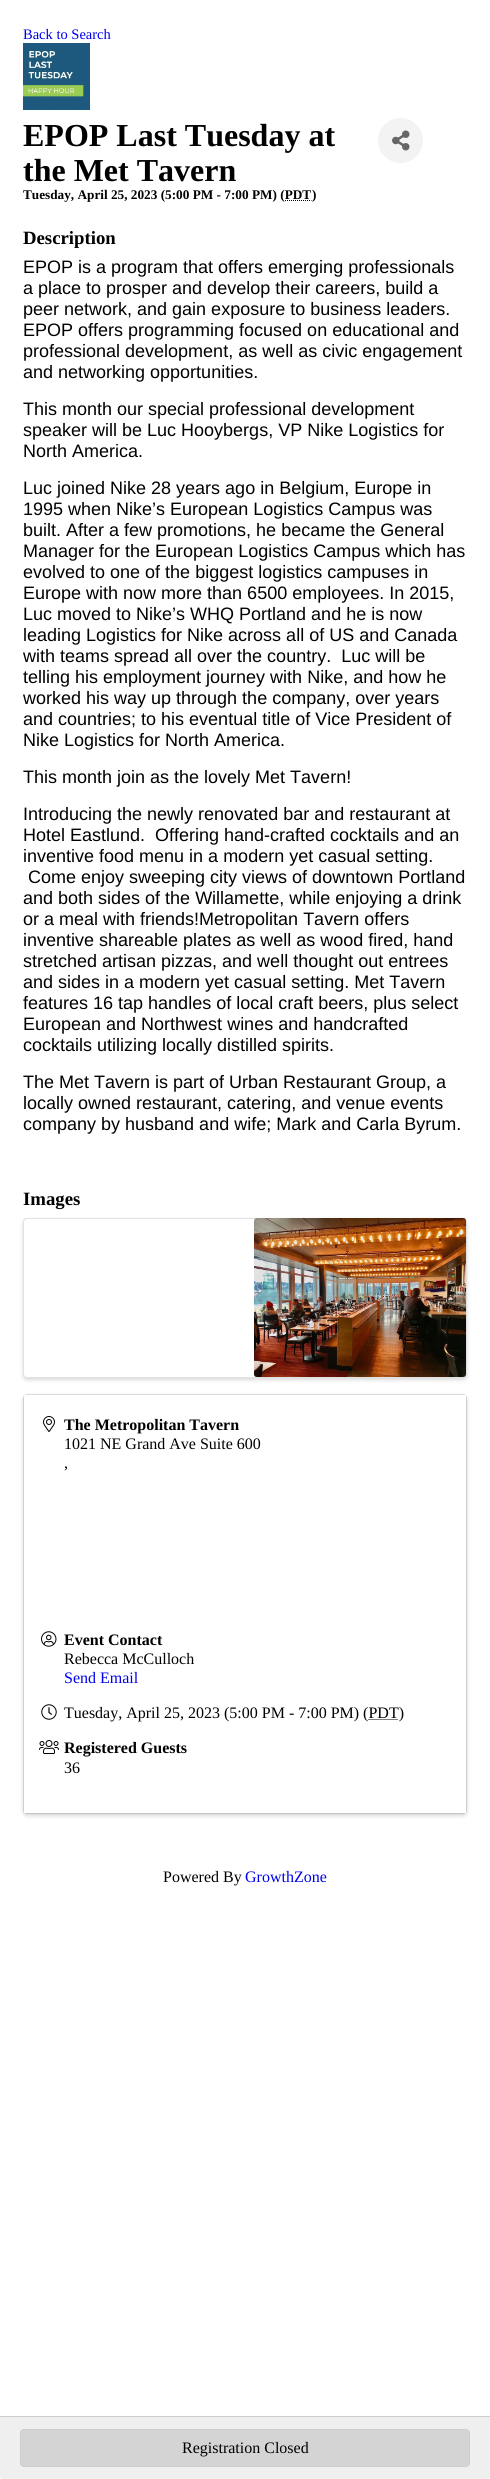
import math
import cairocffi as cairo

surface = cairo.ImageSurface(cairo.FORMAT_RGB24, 490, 2479)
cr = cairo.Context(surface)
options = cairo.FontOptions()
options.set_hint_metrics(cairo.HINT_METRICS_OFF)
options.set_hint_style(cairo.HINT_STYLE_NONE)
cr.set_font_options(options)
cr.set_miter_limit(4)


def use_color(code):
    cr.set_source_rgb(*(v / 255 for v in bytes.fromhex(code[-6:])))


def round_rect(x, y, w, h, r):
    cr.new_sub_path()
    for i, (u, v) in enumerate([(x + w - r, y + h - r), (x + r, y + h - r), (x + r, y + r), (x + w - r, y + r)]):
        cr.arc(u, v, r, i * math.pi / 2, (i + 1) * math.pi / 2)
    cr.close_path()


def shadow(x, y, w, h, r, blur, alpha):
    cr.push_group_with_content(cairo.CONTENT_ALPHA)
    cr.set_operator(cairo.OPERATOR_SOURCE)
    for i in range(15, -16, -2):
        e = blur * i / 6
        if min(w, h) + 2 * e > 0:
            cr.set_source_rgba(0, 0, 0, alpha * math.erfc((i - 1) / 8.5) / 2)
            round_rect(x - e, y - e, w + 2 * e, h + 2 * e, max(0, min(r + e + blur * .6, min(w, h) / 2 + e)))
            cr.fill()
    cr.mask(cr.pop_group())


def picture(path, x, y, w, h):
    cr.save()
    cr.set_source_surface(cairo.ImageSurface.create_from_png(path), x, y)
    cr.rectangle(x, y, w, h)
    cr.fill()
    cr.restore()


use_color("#ffffff")
cr.paint()
cr.select_font_face("Liberation Serif")
cr.set_font_size(14.5)
use_color("#0000ee")
cr.move_to(23, 39)
cr.show_text("Back to Search")
picture("img1.png", 23, 43, 67, 67)
cr.select_font_face("Liberation Serif", cairo.FONT_SLANT_NORMAL, cairo.FONT_WEIGHT_BOLD)
cr.set_font_size(32)
use_color("#000000")
cr.move_to(23, 146)
cr.show_text("EPOP Last Tuesday at")
cr.move_to(23, 181)
cr.show_text("the Met Tavern")
cr.set_font_size(13.25)
cr.move_to(23, 199)
cr.show_text("Tuesday, April 25, 2023 (5:00 PM - 7:00 PM) (PDT")
cr.new_path()
cr.move_to(285, 200.5)
cr.line_to(311.5, 200.5)
cr.set_line_width(1)
cr.set_dash([1, 1])
cr.stroke()
cr.move_to(312, 199)
cr.show_text(")")
use_color("#f3f3f3")
cr.new_path()
cr.arc(400.5, 140.5, 22.5, 0, 2 * math.pi)
cr.fill()
picture("img2.png", 392, 130, 18, 21)
cr.set_font_size(18.75)
use_color("#000000")
cr.move_to(23, 244)
cr.show_text("Description")
cr.select_font_face("Liberation Sans")
cr.set_font_size(18)
cr.move_to(23, 273)
cr.show_text("EPOP is a program that offers emerging professionals")
cr.move_to(23, 294)
cr.show_text("a place to prosper and develop their careers, build a")
cr.move_to(23, 315)
cr.show_text("peer network, and gain exposure to business leaders.")
cr.move_to(23, 336)
cr.show_text("EPOP offers programming focused on educational and")
cr.move_to(23, 357)
cr.show_text("professional development, as well as civic engagement")
cr.move_to(23, 378)
cr.show_text("and networking opportunities.")
cr.move_to(23, 415)
cr.show_text("This month our special professional development")
cr.move_to(23, 436)
cr.show_text("speaker will be Luc Hooybergs, VP Nike Logistics for")
cr.move_to(23, 457)
cr.show_text("North America.")
cr.move_to(23, 494)
cr.show_text("Luc joined Nike 28 years ago in Belgium, Europe in")
cr.move_to(23, 515)
cr.show_text("1995 when Nike’s European Logistics Campus was")
cr.move_to(23, 536)
cr.show_text("built. After a few promotions, he became the General")
cr.move_to(23, 557)
cr.show_text("Manager for the European Logistics Campus which has")
cr.move_to(23, 578)
cr.show_text("evolved to one of the biggest logistics campuses in")
cr.move_to(23, 599)
cr.show_text("Europe with now more than 6500 employees. In 2015,")
cr.move_to(23, 620)
cr.show_text("Luc moved to Nike’s WHQ Portland and he is now")
cr.move_to(23, 641)
cr.show_text("leading Logistics for Nike across all of US and Canada")
cr.move_to(23, 662)
cr.show_text("with teams spread all over the country.  Luc will be")
cr.move_to(23, 683)
cr.show_text("telling his employment journey with Nike, and how he")
cr.move_to(23, 704)
cr.show_text("worked his way up through the company, over years")
cr.move_to(23, 725)
cr.show_text("and countries; to his eventual title of Vice President of")
cr.move_to(23, 746)
cr.show_text("Nike Logistics for North America.")
cr.move_to(23, 783)
cr.show_text("This month join as the lovely Met Tavern!")
cr.move_to(23, 820)
cr.show_text("Introducing the newly renovated bar and restaurant at")
cr.move_to(23, 841)
cr.show_text("Hotel Eastlund")
cr.move_to(140, 841)
cr.show_text(".  Offering hand-crafted cocktails and an")
cr.move_to(23, 862)
cr.show_text("inventive food menu in a modern yet casual setting.")
cr.move_to(28, 883)
cr.show_text("Come enjoy sweeping city views of downtown Portland")
cr.move_to(23, 904)
cr.show_text("and both sides of the Willamette, while enjoying a drink")
cr.move_to(23, 925)
cr.show_text("or a meal with friends!Metropolitan Tavern offers")
cr.move_to(23, 946)
cr.show_text("inventive shareable plates as well as wood fired, hand")
cr.move_to(23, 967)
cr.show_text("stretched artisan pizzas, and well thought out entrees")
cr.move_to(23, 988)
cr.show_text("and sides in a modern yet casual setting. Met Tavern")
cr.move_to(23, 1009)
cr.show_text("features 16 tap handles of local craft beers, plus select")
cr.move_to(23, 1030)
cr.show_text("European and Northwest wines and handcrafted")
cr.move_to(23, 1051)
cr.show_text("cocktails utilizing locally distilled spirits.")
cr.move_to(23, 1088)
cr.show_text("The Met Tavern is part of")
cr.move_to(229, 1088)
cr.show_text("Urban Restaurant Group")
cr.move_to(426, 1088)
cr.show_text(", a")
cr.move_to(23, 1109)
cr.show_text("locally owned restaurant, catering, and venue events")
cr.move_to(23, 1130)
cr.show_text("company by husband and wife; Mark and Carla Byrum.")
cr.select_font_face("Liberation Serif", cairo.FONT_SLANT_NORMAL, cairo.FONT_WEIGHT_BOLD)
cr.set_font_size(18.75)
cr.move_to(23, 1205)
cr.show_text("Images")
use_color("#000000")
shadow(23, 1220, 444, 160, 4, 2, 0.15)
use_color("#ffffff")
round_rect(23, 1218, 444, 160, 4)
cr.fill()
round_rect(23.5, 1218.5, 443, 159, 3.5)
cr.set_source_rgba(0, 0, 0, 0.12)
cr.set_dash([])
cr.stroke()
picture("img3.png", 254, 1218, 212, 159)
use_color("#000000")
shadow(23, 1396, 444, 420, 4, 2, 0.15)
round_rect(23.5, 1394.5, 443, 419, 3.5)
cr.set_source_rgba(0, 0, 0, 0.12)
cr.stroke()
use_color("#ffffff")
cr.rectangle(24, 1395, 442, 418)
cr.fill()
picture("img4.png", 43, 1416, 12, 16)
cr.set_font_size(16)
use_color("#000000")
cr.move_to(64, 1430)
cr.show_text("The Metropolitan Tavern")
cr.select_font_face("Liberation Serif")
cr.move_to(64, 1449)
cr.show_text("1021 NE Grand Ave Suite 600")
cr.move_to(64, 1468)
cr.show_text(",")
picture("img5.png", 41, 1631, 16, 16)
cr.select_font_face("Liberation Serif", cairo.FONT_SLANT_NORMAL, cairo.FONT_WEIGHT_BOLD)
cr.move_to(64, 1645)
cr.show_text("Event Contact")
cr.select_font_face("Liberation Serif")
cr.move_to(64, 1664)
cr.show_text("Rebecca McCulloch")
use_color("#0000ee")
cr.move_to(64, 1683)
cr.show_text("Send Email")
picture("img6.png", 41, 1704, 16, 16)
use_color("#000000")
cr.move_to(64, 1718)
cr.show_text("Tuesday, April 25, 2023 (5:00 PM - 7:00 PM) (PDT)")
cr.new_path()
cr.move_to(368.5, 1719.5)
cr.line_to(398.5, 1719.5)
cr.set_dash([1, 1])
cr.stroke()
picture("img7.png", 39, 1740, 20, 14)
cr.select_font_face("Liberation Serif", cairo.FONT_SLANT_NORMAL, cairo.FONT_WEIGHT_BOLD)
cr.move_to(64, 1753)
cr.show_text("Registered Guests")
cr.select_font_face("Liberation Serif")
cr.move_to(64, 1773)
cr.show_text("36")
use_color("#efefef")
cr.new_path()
cr.move_to(0, 2416)
cr.line_to(490, 2416)
cr.line_to(490, 2476)
cr.curve_to(490, 2477.5, 488.5, 2479, 487, 2479)
cr.line_to(3, 2479)
cr.curve_to(1.5, 2479, 0, 2477.5, 0, 2476)
cr.close_path()
cr.fill()
use_color("#cdcdcd")
cr.rectangle(0, 2416, 490, 1)
cr.fill()
use_color("#d4d4d4")
round_rect(20.5, 2429.5, 449, 37, 3.5)
cr.fill_preserve()
use_color("#cdcdcd")
cr.set_dash([])
cr.stroke()
use_color("#000000")
cr.move_to(182, 2453)
cr.show_text("Registration Closed")
cr.move_to(163, 1882)
cr.show_text("Powered By")
use_color("#0000ee")
cr.move_to(245, 1882)
cr.show_text("GrowthZone")
surface.write_to_png("result.png")
